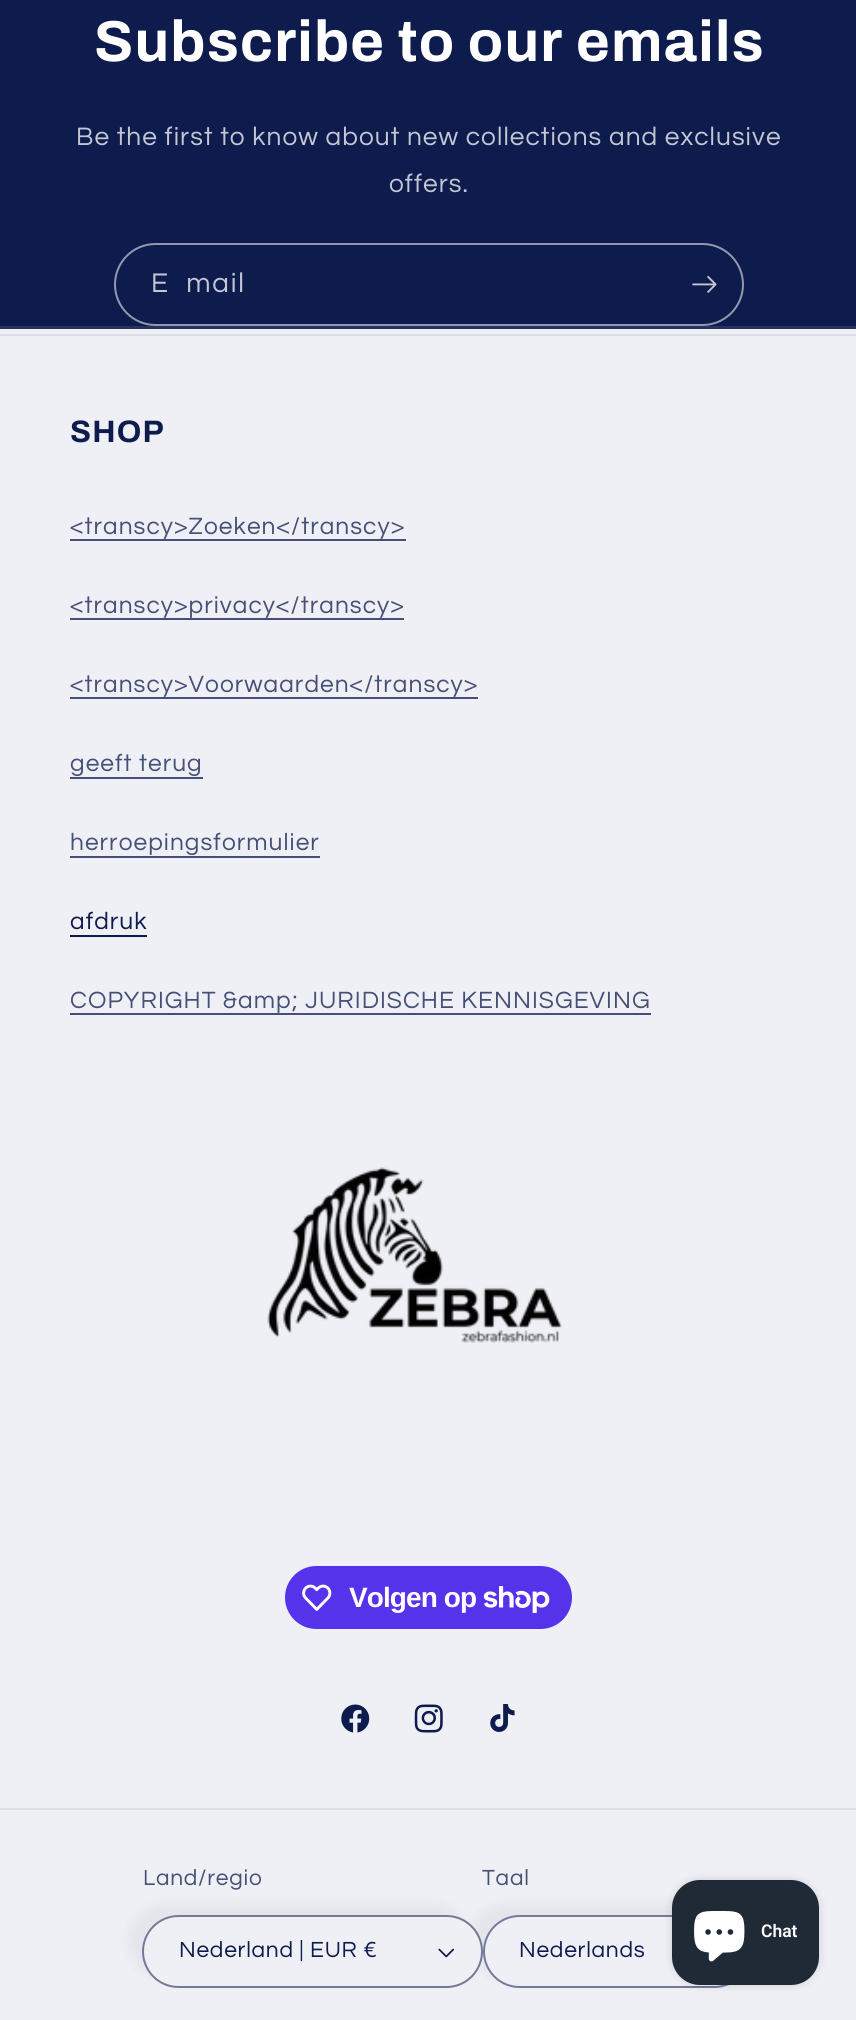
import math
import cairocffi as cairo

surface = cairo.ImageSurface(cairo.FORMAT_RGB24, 856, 2020)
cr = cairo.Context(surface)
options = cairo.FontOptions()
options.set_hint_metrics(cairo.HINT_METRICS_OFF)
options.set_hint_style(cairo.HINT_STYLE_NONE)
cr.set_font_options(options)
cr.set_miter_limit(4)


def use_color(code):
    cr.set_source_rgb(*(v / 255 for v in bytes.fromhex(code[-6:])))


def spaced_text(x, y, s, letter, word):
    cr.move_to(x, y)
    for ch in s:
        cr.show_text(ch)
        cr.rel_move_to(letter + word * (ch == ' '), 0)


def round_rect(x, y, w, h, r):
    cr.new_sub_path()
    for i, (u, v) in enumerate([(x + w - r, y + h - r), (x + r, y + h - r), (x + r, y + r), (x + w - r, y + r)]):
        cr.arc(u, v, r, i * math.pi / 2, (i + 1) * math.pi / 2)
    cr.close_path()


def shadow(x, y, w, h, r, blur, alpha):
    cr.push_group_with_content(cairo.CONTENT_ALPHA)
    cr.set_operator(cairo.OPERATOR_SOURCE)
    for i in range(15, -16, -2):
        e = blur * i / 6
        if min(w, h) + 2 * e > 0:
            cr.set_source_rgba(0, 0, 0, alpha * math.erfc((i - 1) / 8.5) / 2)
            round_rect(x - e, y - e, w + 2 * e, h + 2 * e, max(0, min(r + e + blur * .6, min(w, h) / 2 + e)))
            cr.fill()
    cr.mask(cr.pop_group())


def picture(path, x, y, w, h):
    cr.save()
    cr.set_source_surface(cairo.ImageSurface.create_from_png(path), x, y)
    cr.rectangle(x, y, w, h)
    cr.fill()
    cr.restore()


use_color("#eff0f5")
cr.paint()
use_color("#0e1b4d")
cr.rectangle(0, 0, 856, 326)
cr.fill()
use_color("#26325f")
cr.rectangle(0, 326, 856, 3)
cr.fill()
cr.select_font_face("Archivo", cairo.FONT_SLANT_NORMAL, cairo.FONT_WEIGHT_BOLD)
cr.set_font_size(57.75)
use_color("#ffffff")
spaced_text(94, 61, "Subscribe to our emails", 1.2, 0)
cr.select_font_face("Questrial")
cr.set_font_size(26.25)
use_color("#c3c6d3")
spaced_text(76, 145, "Be the first to know about new collections and exclusive", 1.05, 0)
spaced_text(389, 192, "offers.", 1.05, 0)
round_rect(115, 244, 628, 81, 40.5)
use_color("#9398af")
cr.stroke()
cr.set_font_size(28)
use_color("#c3c6d3")
spaced_text(151, 292, "E‑mail", 1.75, 0)
picture("img1.png", 692, 276, 25, 17)
use_color("#dddfe8")
cr.rectangle(0, 334, 856, 2)
cr.fill()
cr.select_font_face("Archivo", cairo.FONT_SLANT_NORMAL, cairo.FONT_WEIGHT_BOLD)
cr.set_font_size(31)
use_color("#0e1b4d")
spaced_text(70, 442, "SHOP", 1.2, 0)
cr.select_font_face("Questrial")
cr.set_font_size(24.5)
use_color("#465077")
spaced_text(70, 534, "<transcy>Zoeken</transcy>", 1.05, 0)
cr.rectangle(70, 539, 336, 2)
cr.fill()
spaced_text(70, 613, "<transcy>privacy</transcy>", 1.05, 0)
cr.rectangle(70, 618, 334, 2)
cr.fill()
spaced_text(70, 692, "<transcy>Voorwaarden</transcy>", 1.05, 0)
cr.rectangle(70, 697, 408, 2)
cr.fill()
spaced_text(70, 771, "geeft terug", 1.05, 0)
cr.rectangle(70, 777, 133, 2)
cr.fill()
spaced_text(70, 850, "herroepingsformulier", 1.05, 0)
cr.rectangle(70, 856, 250, 2)
cr.fill()
use_color("#0e1b4d")
spaced_text(70, 929, "afdruk", 1.05, 0)
cr.rectangle(70, 935, 77, 2)
cr.fill()
use_color("#465077")
spaced_text(70, 1008, "COPYRIGHT &amp; JURIDISCHE KENNISGEVING", 1.05, 0)
cr.rectangle(70, 1013, 581, 2)
cr.fill()
picture("img2.png", 267, 1167, 295, 176)
use_color("#5433eb")
round_rect(285, 1566, 287, 63, 31.5)
cr.fill()
picture("img3.png", 302, 1584, 30, 27)
cr.select_font_face("Liberation Sans", cairo.FONT_SLANT_NORMAL, cairo.FONT_WEIGHT_BOLD)
cr.set_font_size(28)
use_color("#ffffff")
spaced_text(349, 1607, "Volgen op", -0.9, 0)
picture("img4.png", 483, 1586, 67, 27)
picture("img5.png", 341, 1704, 29, 29)
picture("img6.png", 414, 1704, 29, 29)
picture("img7.png", 490, 1704, 25, 28)
use_color("#dddfe8")
cr.rectangle(0, 1808, 856, 2)
cr.fill()
use_color("#0e1b4d")
shadow(128, 1904, 341, 74, 37, 4.5, 0.05)
cr.select_font_face("Questrial")
cr.set_font_size(22.75)
use_color("#465077")
spaced_text(143, 1885, "Land/regio", 0.75, 0)
use_color("#0e1b4d")
shadow(469, 1904, 268, 74, 37, 4.5, 0.05)
use_color("#eff0f5")
round_rect(142, 1915, 341, 73, 36.5)
cr.fill()
picture("img8.png", 438, 1948, 17, 10)
round_rect(143, 1916, 339, 71, 35.5)
cr.set_source_rgba(0.055, 0.106, 0.302, 0.55)
cr.stroke()
use_color("#0e1b4d")
spaced_text(179, 1957, "Nederland | EUR €", 0.75, 0)
use_color("#465077")
spaced_text(482, 1885, "Taal", 0.75, 0)
use_color("#eff0f5")
round_rect(483, 1915, 268, 73, 36.5)
cr.fill()
round_rect(484, 1916, 266, 71, 35.5)
use_color("#737b99")
cr.stroke()
use_color("#0e1b4d")
spaced_text(519, 1957, "Nederlands", 0.75, 0)
use_color("#000000")
shadow(672, 1880, 147, 105, 28, 4.5, 0.15)
use_color("#202a36")
round_rect(672, 1880, 147, 105, 28)
cr.fill()
picture("img9.png", 694, 1911, 51, 51)
cr.select_font_face("Roboto SemiBold")
cr.set_font_size(17.5)
use_color("#ffffff")
cr.move_to(761, 1937)
cr.show_text("Chat")
surface.write_to_png("result.png")
